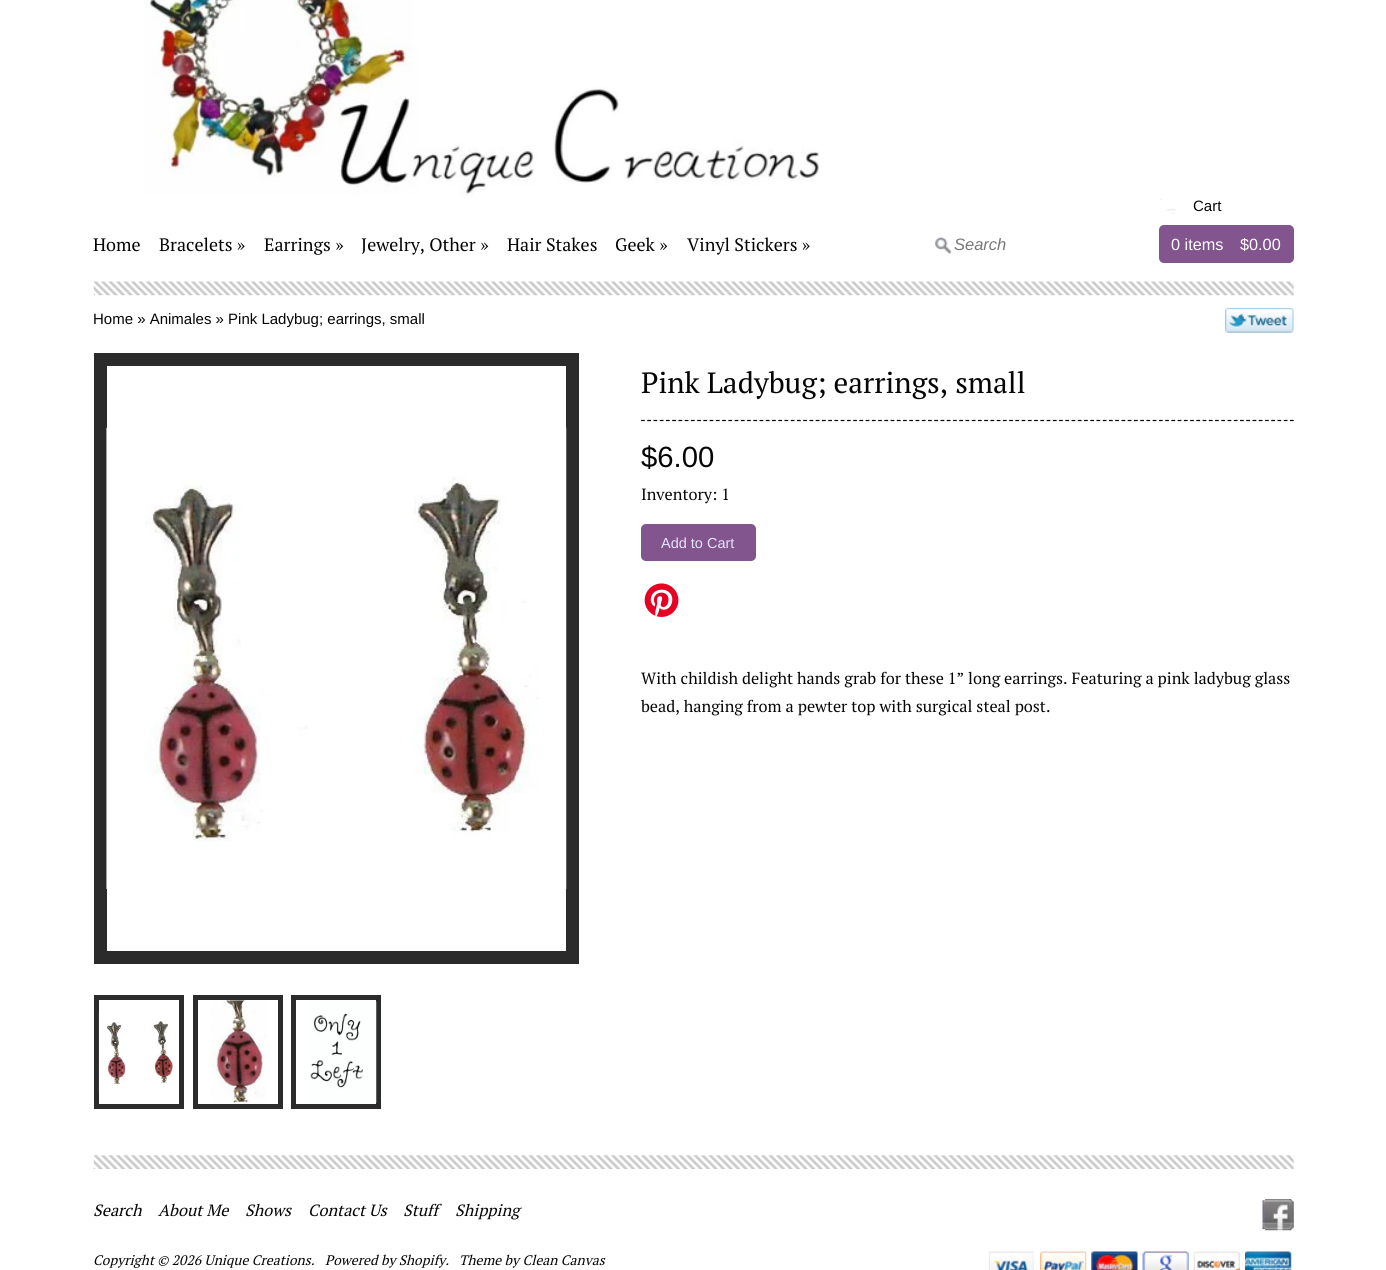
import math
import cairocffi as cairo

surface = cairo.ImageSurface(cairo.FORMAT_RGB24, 1386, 1270)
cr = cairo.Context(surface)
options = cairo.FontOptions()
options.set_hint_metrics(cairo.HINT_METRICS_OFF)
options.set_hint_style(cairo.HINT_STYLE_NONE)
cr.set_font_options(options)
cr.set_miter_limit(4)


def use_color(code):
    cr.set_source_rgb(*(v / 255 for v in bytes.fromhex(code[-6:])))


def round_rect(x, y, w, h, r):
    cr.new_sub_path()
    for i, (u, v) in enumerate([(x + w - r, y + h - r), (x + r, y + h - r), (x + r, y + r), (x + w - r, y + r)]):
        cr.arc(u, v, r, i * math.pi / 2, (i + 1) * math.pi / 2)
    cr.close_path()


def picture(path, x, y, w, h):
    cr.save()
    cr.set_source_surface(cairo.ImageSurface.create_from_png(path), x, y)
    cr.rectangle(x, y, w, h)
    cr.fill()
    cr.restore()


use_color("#ffffff")
cr.paint()
picture("img1.png", 144, 0, 675, 196)
picture("img2.png", 93, 281, 1201, 15)
cr.select_font_face("PT Serif")
cr.set_font_size(18)
use_color("#050505")
cr.move_to(93, 251)
cr.show_text("Home")
cr.move_to(159, 251)
cr.show_text("Bracelets »")
cr.move_to(264, 251)
cr.show_text("Earrings »")
cr.move_to(361, 251)
cr.show_text("Jewelry, Other »")
cr.move_to(507, 251)
cr.show_text("Hair Stakes")
cr.move_to(615, 251)
cr.show_text("Geek »")
cr.move_to(687, 251)
cr.show_text("Vinyl Stickers »")
picture("img3.png", 935, 237, 17, 17)
cr.select_font_face("Liberation Sans", cairo.FONT_SLANT_ITALIC)
cr.set_font_size(16.5)
use_color("#777777")
cr.move_to(954, 250)
cr.show_text("Search")
use_color("#82558f")
round_rect(1159, 225, 135, 38, 5)
cr.fill()
picture("img4.png", 1160, 199, 16, 15)
cr.select_font_face("Liberation Sans")
cr.set_font_size(15)
use_color("#050505")
cr.move_to(1193, 211)
cr.show_text("Cart")
cr.set_font_size(16.25)
use_color("#ffffff")
cr.move_to(1171, 250)
cr.show_text("0 items")
cr.move_to(1240, 250)
cr.show_text("$0.00")
cr.set_font_size(15)
use_color("#050505")
cr.move_to(93, 324)
cr.show_text("Home » Animales » Pink Ladybug; earrings, small")
picture("img5.png", 1225, 307, 69, 26)
cr.rectangle(100.5, 359.5, 472, 598)
use_color("#2a2b2a")
cr.set_line_width(13)
cr.stroke()
picture("img6.png", 106, 427, 461, 462)
cr.rectangle(96.5, 997.5, 85, 109)
cr.set_line_width(5)
cr.stroke()
picture("img7.png", 98, 1011, 75, 82)
cr.rectangle(195.5, 997.5, 85, 109)
cr.stroke()
picture("img8.png", 211, 1000, 56, 104)
cr.rectangle(293.5, 997.5, 85, 109)
cr.stroke()
picture("img9.png", 310, 1001, 67, 102)
cr.new_path()
cr.move_to(641, 420.5)
cr.line_to(1294, 420.5)
use_color("#000000")
cr.set_line_width(1.2)
cr.set_dash([3.75, 2.49])
cr.stroke()
cr.select_font_face("PT Serif")
cr.set_font_size(29.25)
use_color("#050505")
cr.move_to(641, 393)
cr.show_text("Pink Ladybug; earrings, small")
cr.select_font_face("Liberation Sans")
cr.move_to(641, 467)
cr.show_text("$6.00")
cr.select_font_face("PT Serif")
cr.set_font_size(16.25)
cr.move_to(641, 500)
cr.show_text("Inventory: 1")
use_color("#82558f")
round_rect(641, 524, 115, 37, 5)
cr.fill()
cr.select_font_face("Liberation Sans")
cr.set_font_size(14.5)
use_color("#e7e2fd")
cr.move_to(661, 548)
cr.show_text("Add to Cart")
picture("img10.png", 644, 583, 35, 34)
cr.select_font_face("PT Serif")
cr.set_font_size(16.25)
use_color("#050505")
cr.move_to(641, 684)
cr.show_text("With childish delight hands grab for these 1” long earrings. Featuring a pink ladybug glass")
cr.move_to(641, 712)
cr.show_text("bead, hanging from a pewter top with surgical steal post.")
picture("img11.png", 93, 1155, 1201, 14)
cr.select_font_face("PT Serif", cairo.FONT_SLANT_ITALIC)
cr.move_to(93, 1216)
cr.show_text("Search")
cr.move_to(158, 1216)
cr.show_text("About Me")
cr.move_to(245, 1216)
cr.show_text("Shows")
cr.move_to(308, 1216)
cr.show_text("Contact Us")
cr.move_to(403, 1216)
cr.show_text("Stuff")
cr.move_to(455, 1216)
cr.show_text("Shipping")
picture("img12.png", 1262, 1199, 32, 32)
cr.set_font_size(13.75)
cr.move_to(93, 1265)
cr.show_text("Copyright © 2026 Unique Creations.")
cr.move_to(325, 1265)
cr.show_text("Powered by Shopify.")
cr.move_to(459, 1265)
cr.show_text("Theme by Clean Canvas")
picture("img13.png", 988, 1251, 46, 19)
picture("img14.png", 1040, 1251, 47, 19)
picture("img15.png", 1091, 1251, 47, 19)
picture("img16.png", 1142, 1251, 47, 19)
picture("img17.png", 1193, 1251, 47, 19)
picture("img18.png", 1245, 1251, 47, 19)
surface.write_to_png("result.png")
